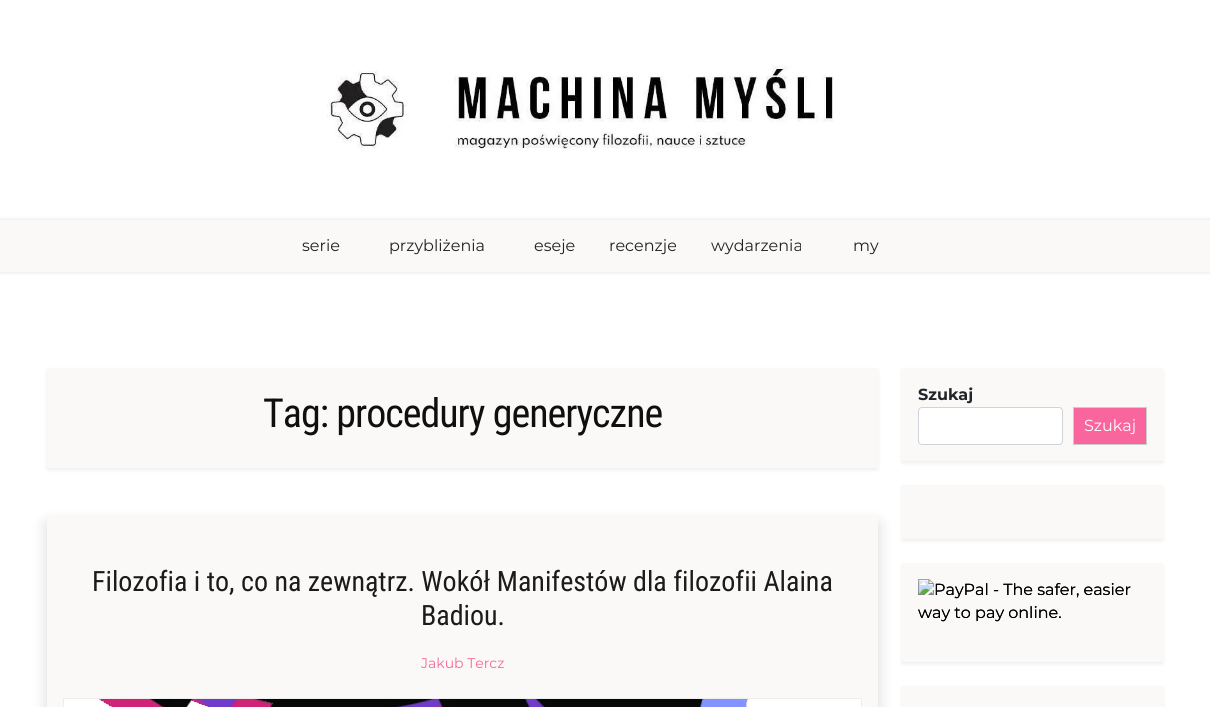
import math
import cairocffi as cairo

surface = cairo.ImageSurface(cairo.FORMAT_RGB24, 1210, 707)
cr = cairo.Context(surface)
options = cairo.FontOptions()
options.set_hint_metrics(cairo.HINT_METRICS_OFF)
options.set_hint_style(cairo.HINT_STYLE_NONE)
cr.set_font_options(options)
cr.set_miter_limit(4)


def use_color(code):
    cr.set_source_rgb(*(v / 255 for v in bytes.fromhex(code[-6:])))


def spaced_text(x, y, s, letter, word):
    cr.move_to(x, y)
    for ch in s:
        cr.show_text(ch)
        cr.rel_move_to(letter + word * (ch == ' '), 0)


def round_rect(x, y, w, h, r):
    cr.new_sub_path()
    for i, (u, v) in enumerate([(x + w - r, y + h - r), (x + r, y + h - r), (x + r, y + r), (x + w - r, y + r)]):
        cr.arc(u, v, r, i * math.pi / 2, (i + 1) * math.pi / 2)
    cr.close_path()


def shadow(x, y, w, h, r, blur, alpha):
    cr.push_group_with_content(cairo.CONTENT_ALPHA)
    cr.set_operator(cairo.OPERATOR_SOURCE)
    for i in range(15, -16, -2):
        e = blur * i / 6
        if min(w, h) + 2 * e > 0:
            cr.set_source_rgba(0, 0, 0, alpha * math.erfc((i - 1) / 8.5) / 2)
            round_rect(x - e, y - e, w + 2 * e, h + 2 * e, max(0, min(r + e + blur * .6, min(w, h) / 2 + e)))
            cr.fill()
    cr.mask(cr.pop_group())


def picture(path, x, y, w, h):
    cr.save()
    cr.set_source_surface(cairo.ImageSurface.create_from_png(path), x, y)
    cr.rectangle(x, y, w, h)
    cr.fill()
    cr.restore()


use_color("#ffffff")
cr.paint()
picture("img1.png", 327, 65, 507, 86)
use_color("#000000")
shadow(0, 220, 1210, 52, 0, 2.5, 0.12)
use_color("#faf9f7")
cr.rectangle(0, 220, 1210, 52)
cr.fill()
cr.select_font_face("Montserrat")
cr.set_font_size(16)
use_color("#222222")
cr.move_to(302, 251)
cr.show_text("serie")
cr.move_to(389, 251)
cr.show_text("przybliżenia")
cr.move_to(534, 251)
cr.show_text("eseje")
cr.move_to(609, 251)
cr.show_text("recenzje")
cr.move_to(711, 251)
cr.show_text("wydarzenia")
cr.move_to(853, 251)
cr.show_text("my")
use_color("#000000")
shadow(47, 370, 831, 100, 0, 2, 0.07)
use_color("#faf9f7")
cr.rectangle(47, 368, 831, 100)
cr.fill()
cr.select_font_face("Roboto Condensed")
cr.set_font_size(40)
use_color("#0f0f0f")
spaced_text(263, 427, "Tag: procedury generyczne", -1, 0)
use_color("#faf9f7")
cr.rectangle(47, 516, 831, 191)
cr.fill()
cr.save()
cr.set_fill_rule(cairo.FILL_RULE_EVEN_ODD)
cr.new_path()
cr.move_to(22, 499)
cr.line_to(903, 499)
cr.line_to(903, 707)
cr.line_to(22, 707)
cr.close_path()
cr.move_to(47, 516)
cr.line_to(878, 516)
cr.line_to(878, 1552)
cr.line_to(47, 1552)
cr.close_path()
cr.clip()
use_color("#000000")
shadow(47, 524, 831, 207, 0, 8, 0.15)
cr.restore()
cr.set_font_size(28)
use_color("#1b1b1b")
cr.move_to(92, 591)
cr.show_text("Filozofia i to, co na zewnątrz. Wokół Manifestów dla filozofii Alaina")
cr.move_to(421, 625)
cr.show_text("Badiou.")
cr.select_font_face("Montserrat")
cr.set_font_size(14)
use_color("#f8669d")
cr.move_to(421, 668)
cr.show_text("Jakub Tercz")
cr.rectangle(63.5, 698.5, 798, 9)
use_color("#ededed")
cr.set_line_width(1)
cr.stroke()
picture("img2.png", 64, 699, 797, 8)
use_color("#000000")
shadow(902, 370, 261, 93, 0, 2, 0.07)
use_color("#faf9f7")
cr.rectangle(902, 368, 261, 93)
cr.fill()
cr.select_font_face("Montserrat", cairo.FONT_SLANT_NORMAL, cairo.FONT_WEIGHT_BOLD)
cr.set_font_size(16)
use_color("#212529")
cr.move_to(918, 400)
cr.show_text("Szukaj")
use_color("#ffffff")
round_rect(918.5, 407.5, 144, 37, 3.5)
cr.fill_preserve()
use_color("#ced4da")
cr.stroke()
use_color("#f8669d")
cr.rectangle(1073.5, 407.5, 73, 37)
cr.fill_preserve()
use_color("#cccccc")
cr.stroke()
cr.select_font_face("Montserrat")
use_color("#ffffff")
cr.move_to(1084, 431)
cr.show_text("Szukaj")
use_color("#000000")
shadow(902, 487, 261, 54, 0, 2, 0.07)
use_color("#faf9f7")
cr.rectangle(902, 485, 261, 54)
cr.fill()
use_color("#000000")
shadow(902, 565, 261, 99, 0, 2, 0.07)
use_color("#faf9f7")
cr.rectangle(902, 563, 261, 99)
cr.fill()
picture("img3.png", 918, 579, 213, 43)
use_color("#000000")
cr.move_to(934, 595)
cr.show_text("PayPal - The safer, easier")
cr.move_to(918, 618)
cr.show_text("way to pay online.")
use_color("#000000")
shadow(902, 688, 261, 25, 0, 2, 0.07)
use_color("#faf9f7")
cr.rectangle(902, 686, 261, 21)
cr.fill()
surface.write_to_png("result.png")
